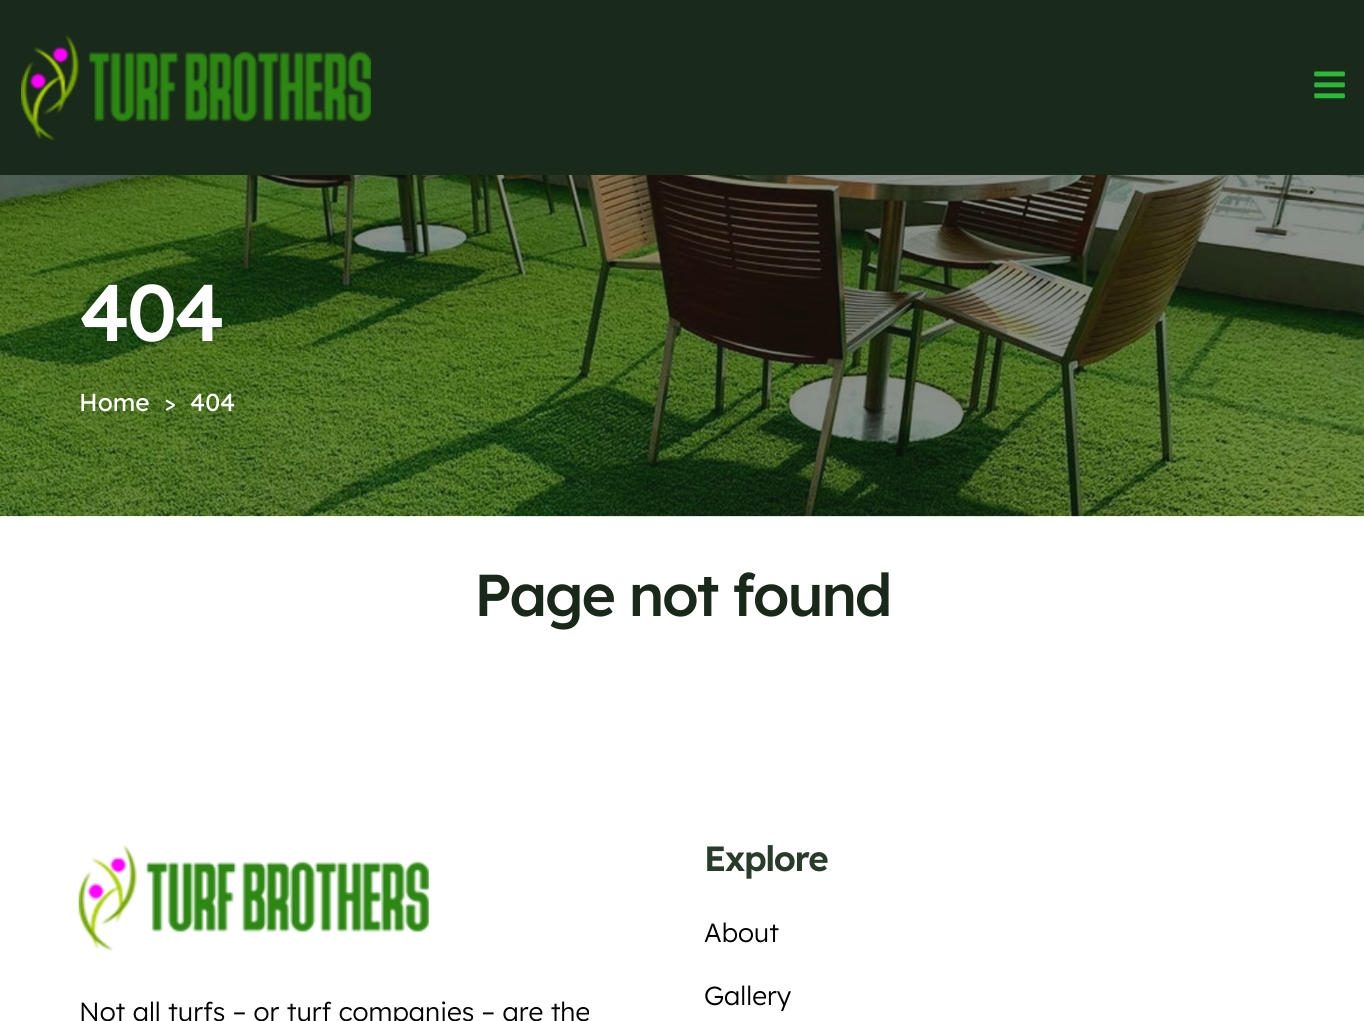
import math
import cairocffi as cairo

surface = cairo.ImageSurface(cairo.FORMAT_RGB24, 1364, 1021)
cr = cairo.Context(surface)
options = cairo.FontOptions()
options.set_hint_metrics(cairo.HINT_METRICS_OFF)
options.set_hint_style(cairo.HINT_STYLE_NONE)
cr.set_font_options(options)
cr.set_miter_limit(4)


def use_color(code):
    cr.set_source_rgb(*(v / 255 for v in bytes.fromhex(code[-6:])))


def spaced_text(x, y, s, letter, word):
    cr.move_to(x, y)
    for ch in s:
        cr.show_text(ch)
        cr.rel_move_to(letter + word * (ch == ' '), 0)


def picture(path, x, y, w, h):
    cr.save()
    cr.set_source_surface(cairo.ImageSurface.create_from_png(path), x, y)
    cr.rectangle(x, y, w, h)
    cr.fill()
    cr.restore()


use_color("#ffffff")
cr.paint()
use_color("#19291a")
cr.rectangle(0, 0, 1364, 175)
cr.fill()
picture("img1.png", 21, 35, 350, 105)
picture("img2.png", 1314, 71, 31, 28)
use_color("#121f12")
cr.rectangle(0, 175, 1364, 341)
cr.fill()
picture("img3.png", 0, 175, 1364, 342)
cr.select_font_face("Lexend Medium")
cr.set_font_size(80)
use_color("#ffffff")
spaced_text(79, 341, "404", -3, 0)
cr.select_font_face("Lexend")
cr.set_font_size(24.5)
cr.move_to(79, 411)
cr.show_text("Home")
cr.set_font_size(23)
cr.move_to(164, 411)
cr.show_text(">")
cr.set_font_size(24.5)
cr.move_to(190, 411)
cr.show_text("404")
cr.select_font_face("Lexend Medium")
cr.set_font_size(59)
use_color("#192919")
spaced_text(474, 616, "Page not found", -2.4, 0)
picture("img4.png", 78, 845, 351, 106)
cr.select_font_face("Lexend Light")
cr.set_font_size(26.25)
use_color("#000000")
cr.move_to(79, 1021)
cr.show_text("Not all turfs – or turf companies – are the")
cr.select_font_face("Lexend SemiBold")
cr.set_font_size(35)
use_color("#283c29")
spaced_text(704, 871, "Explore", -1.5, 0)
cr.select_font_face("Lexend Light")
cr.set_font_size(26.25)
use_color("#000000")
cr.move_to(704, 942)
cr.show_text("About")
cr.move_to(704, 1005)
cr.show_text("Gallery")
surface.write_to_png("result.png")
